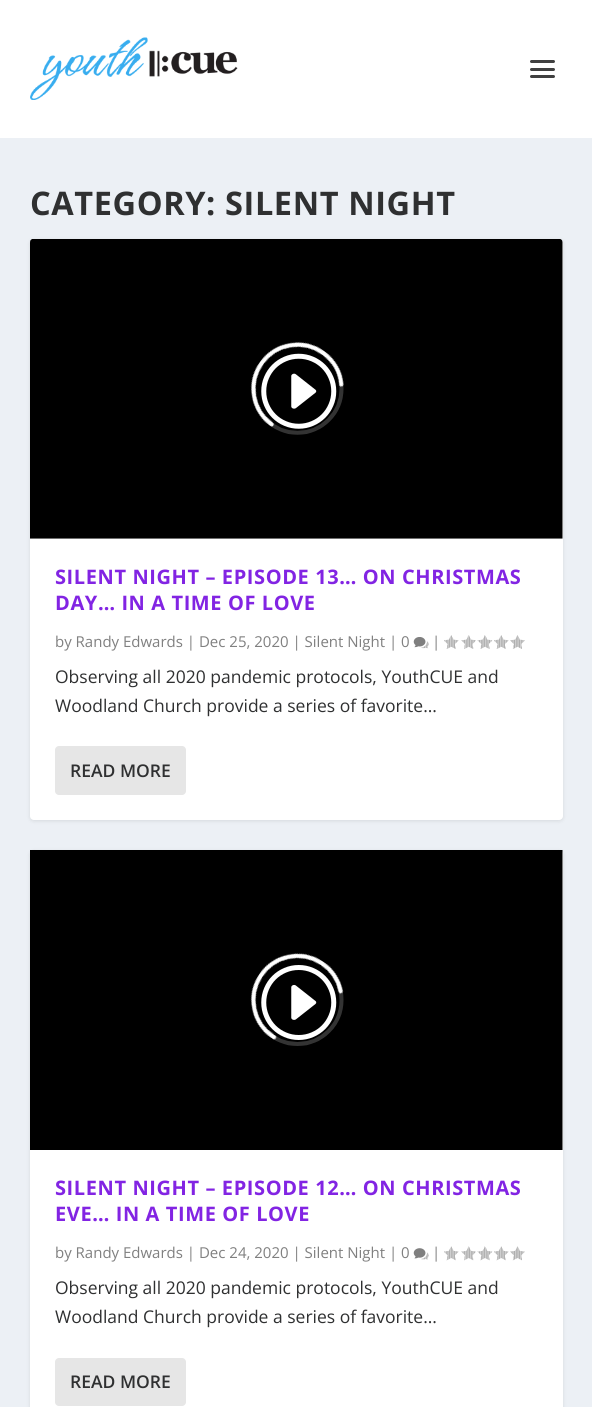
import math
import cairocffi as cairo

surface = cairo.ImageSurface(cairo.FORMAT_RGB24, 592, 1407)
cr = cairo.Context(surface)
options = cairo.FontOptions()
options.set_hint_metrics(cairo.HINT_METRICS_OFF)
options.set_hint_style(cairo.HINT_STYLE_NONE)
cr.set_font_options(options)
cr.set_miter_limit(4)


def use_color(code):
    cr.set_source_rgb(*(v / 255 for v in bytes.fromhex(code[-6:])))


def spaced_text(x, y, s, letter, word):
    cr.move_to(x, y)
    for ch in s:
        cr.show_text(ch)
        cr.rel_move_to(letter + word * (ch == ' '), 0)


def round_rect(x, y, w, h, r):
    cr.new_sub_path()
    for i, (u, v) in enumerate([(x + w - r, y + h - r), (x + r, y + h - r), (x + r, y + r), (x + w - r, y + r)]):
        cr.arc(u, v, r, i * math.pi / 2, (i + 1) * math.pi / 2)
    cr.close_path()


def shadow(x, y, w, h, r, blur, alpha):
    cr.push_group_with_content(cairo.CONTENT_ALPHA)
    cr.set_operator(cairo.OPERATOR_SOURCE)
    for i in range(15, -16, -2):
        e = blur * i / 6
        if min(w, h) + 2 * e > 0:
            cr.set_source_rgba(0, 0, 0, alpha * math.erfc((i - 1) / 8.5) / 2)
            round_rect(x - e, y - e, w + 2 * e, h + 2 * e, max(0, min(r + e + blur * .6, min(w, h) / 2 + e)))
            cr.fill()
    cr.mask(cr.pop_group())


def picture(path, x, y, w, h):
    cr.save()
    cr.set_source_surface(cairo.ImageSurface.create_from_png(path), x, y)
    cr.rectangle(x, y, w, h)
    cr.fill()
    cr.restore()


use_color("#ecf0f5")
cr.paint()
use_color("#ffffff")
cr.rectangle(0, 0, 592, 138)
cr.fill()
picture("img1.png", 30, 37, 208, 63)
use_color("#404040")
round_rect(530, 60, 25, 3, 1.5)
cr.fill()
round_rect(530, 68, 25, 3, 1.5)
cr.fill()
round_rect(530, 75, 25, 3, 1.5)
cr.fill()
cr.select_font_face("Open Sans", cairo.FONT_SLANT_NORMAL, cairo.FONT_WEIGHT_BOLD)
cr.set_font_size(32.5)
use_color("#2f3031")
spaced_text(30, 215, "CATEGORY: SILENT NIGHT", 0.6, 0)
use_color("#000000")
shadow(30, 240, 533, 581, 4, 2, 0.1)
use_color("#ffffff")
round_rect(30, 239, 533, 581, 4)
cr.fill()
picture("img2.png", 30, 239, 533, 300)
picture("img3.png", 261, 353, 76, 76)
cr.set_font_size(20)
use_color("#8224e3")
spaced_text(55, 584, "SILENT NIGHT – EPISODE 13… ON CHRISTMAS", 0.6, 0)
spaced_text(55, 610, "DAY… IN A TIME OF LOVE", 0.6, 0)
cr.select_font_face("Open Sans")
cr.set_font_size(15)
use_color("#808080")
cr.move_to(55, 647)
cr.show_text("by Randy Edwards | Dec 25, 2020 | Silent Night | 0")
picture("img4.png", 413, 637, 16, 12)
cr.move_to(432, 647)
cr.show_text("|")
picture("img5.png", 444, 635, 15, 14)
picture("img6.png", 461, 635, 15, 14)
picture("img7.png", 477, 635, 16, 14)
picture("img5.png", 494, 635, 15, 14)
picture("img8.png", 510, 635, 15, 14)
cr.set_font_size(17.5)
use_color("#2f3031")
cr.move_to(55, 683)
cr.show_text("Observing all 2020 pandemic protocols, YouthCUE and")
cr.move_to(55, 712)
cr.show_text("Woodland Church provide a series of favorite...")
use_color("#e6e6e6")
round_rect(55, 746, 131, 49, 4)
cr.fill()
cr.select_font_face("Open Sans SemiBold")
use_color("#2f3031")
cr.move_to(70, 777)
cr.show_text("READ MORE")
use_color("#000000")
shadow(30, 851, 533, 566, 4, 2, 0.1)
use_color("#ffffff")
round_rect(30, 850, 533, 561, 4)
cr.fill()
picture("img9.png", 30, 850, 533, 300)
picture("img10.png", 261, 965, 76, 75)
cr.select_font_face("Open Sans", cairo.FONT_SLANT_NORMAL, cairo.FONT_WEIGHT_BOLD)
cr.set_font_size(20)
use_color("#8224e3")
spaced_text(55, 1195, "SILENT NIGHT – EPISODE 12… ON CHRISTMAS", 0.6, 0)
spaced_text(55, 1221, "EVE… IN A TIME OF LOVE", 0.6, 0)
cr.select_font_face("Open Sans")
cr.set_font_size(15)
use_color("#808080")
cr.move_to(55, 1258)
cr.show_text("by Randy Edwards | Dec 24, 2020 | Silent Night | 0")
picture("img11.png", 413, 1248, 16, 12)
cr.move_to(432, 1258)
cr.show_text("|")
picture("img12.png", 444, 1246, 15, 15)
picture("img13.png", 461, 1246, 15, 15)
picture("img14.png", 477, 1246, 16, 15)
picture("img12.png", 494, 1246, 15, 15)
picture("img15.png", 510, 1246, 15, 15)
cr.set_font_size(17.5)
use_color("#2f3031")
cr.move_to(55, 1294)
cr.show_text("Observing all 2020 pandemic protocols, YouthCUE and")
cr.move_to(55, 1323)
cr.show_text("Woodland Church provide a series of favorite...")
use_color("#e6e6e6")
round_rect(55, 1358, 131, 48, 4)
cr.fill()
cr.select_font_face("Open Sans SemiBold")
use_color("#2f3031")
cr.move_to(70, 1388)
cr.show_text("READ MORE")
surface.write_to_png("result.png")
